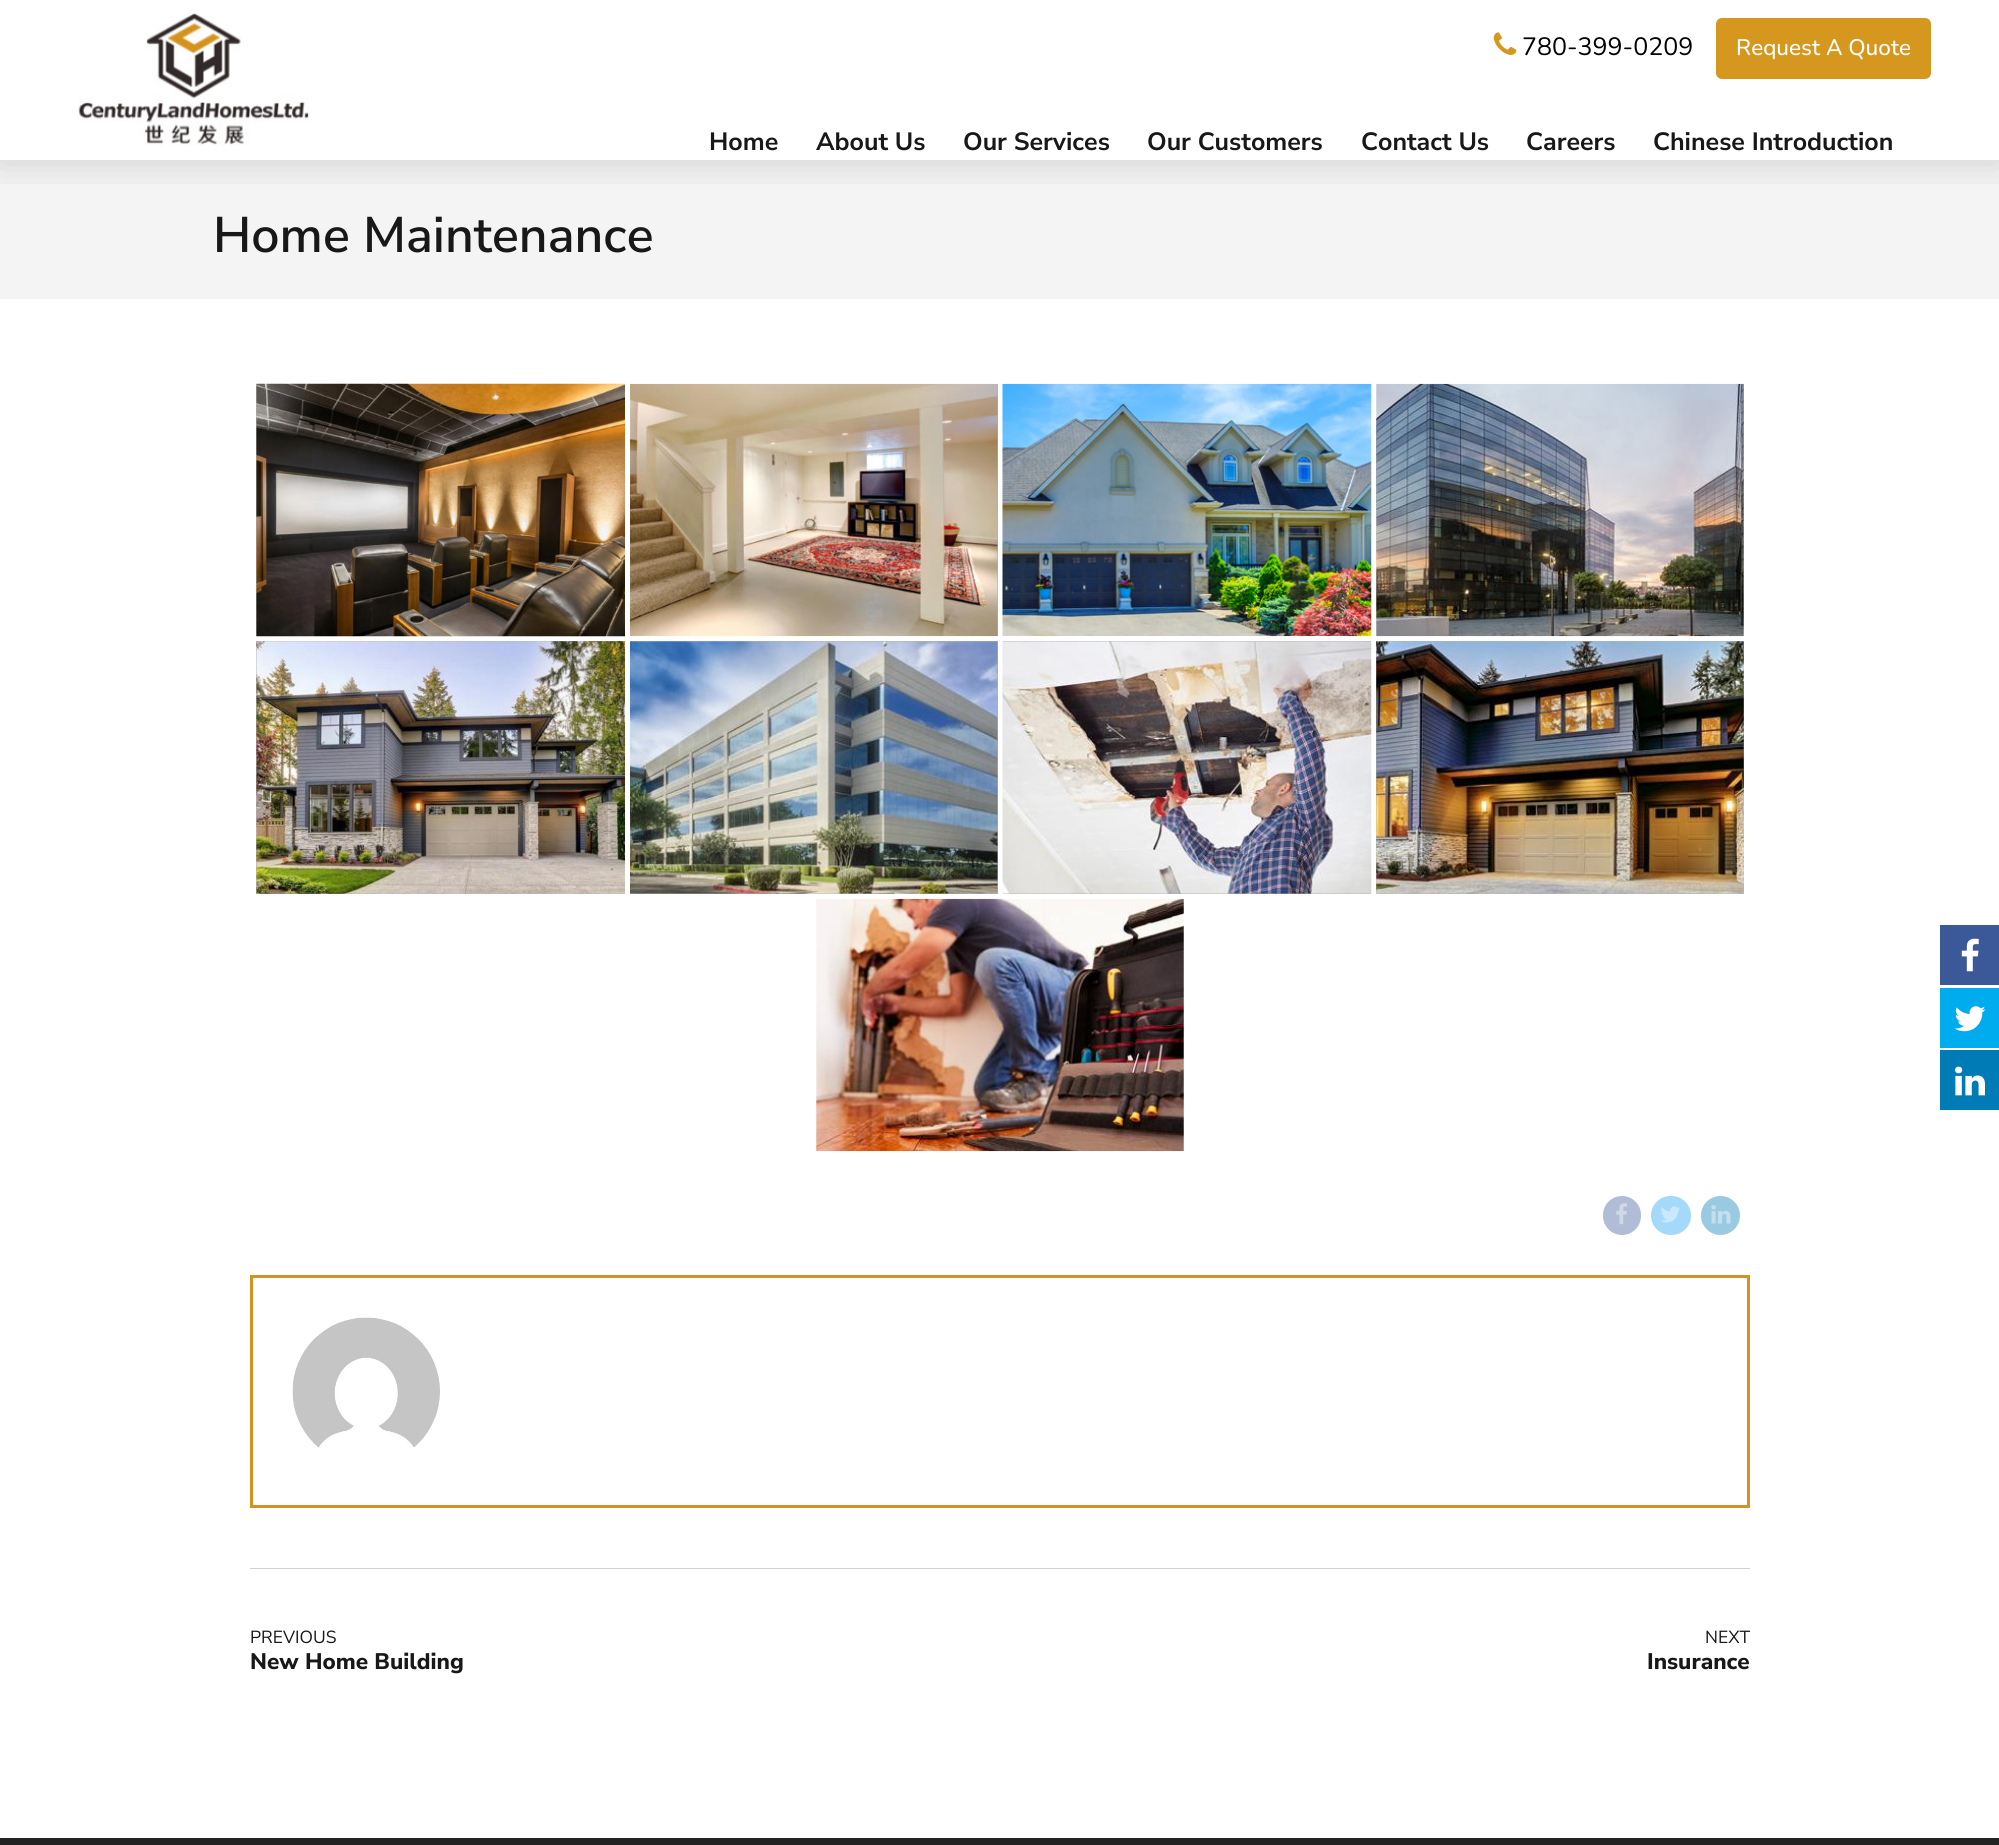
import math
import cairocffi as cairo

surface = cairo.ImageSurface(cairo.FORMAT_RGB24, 1999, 1845)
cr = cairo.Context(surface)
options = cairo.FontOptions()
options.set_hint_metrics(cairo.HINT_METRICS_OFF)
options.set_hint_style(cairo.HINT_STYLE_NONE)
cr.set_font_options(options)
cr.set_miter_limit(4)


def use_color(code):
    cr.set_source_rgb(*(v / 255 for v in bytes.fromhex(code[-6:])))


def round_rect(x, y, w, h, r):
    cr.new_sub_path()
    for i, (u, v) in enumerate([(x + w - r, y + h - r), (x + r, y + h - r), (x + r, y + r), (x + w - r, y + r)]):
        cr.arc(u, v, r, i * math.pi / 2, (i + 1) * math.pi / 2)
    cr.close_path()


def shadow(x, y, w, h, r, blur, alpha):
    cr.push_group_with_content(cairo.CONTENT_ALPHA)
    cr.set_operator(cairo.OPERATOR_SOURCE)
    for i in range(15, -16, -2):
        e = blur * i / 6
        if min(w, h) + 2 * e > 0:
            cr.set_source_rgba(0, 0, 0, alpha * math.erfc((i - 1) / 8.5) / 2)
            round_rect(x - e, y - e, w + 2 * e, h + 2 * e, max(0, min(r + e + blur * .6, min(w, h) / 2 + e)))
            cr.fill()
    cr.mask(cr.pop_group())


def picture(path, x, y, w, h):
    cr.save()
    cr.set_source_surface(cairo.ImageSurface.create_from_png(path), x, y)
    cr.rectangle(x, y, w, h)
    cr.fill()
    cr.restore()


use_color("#ffffff")
cr.paint()
use_color("#f4f4f4")
cr.rectangle(0, 160, 1999, 139)
cr.fill()
cr.save()
cr.rectangle(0, 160, 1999, 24)
cr.clip()
use_color("#000000")
shadow(0, 3, 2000, 160, 0, 19, 0.15)
cr.restore()
picture("img1.png", 1493, 32, 24, 23)
cr.select_font_face("Nunito")
cr.set_font_size(25)
use_color("#000000")
cr.move_to(1522, 55)
cr.show_text("780-399-0209")
use_color("#d6971e")
round_rect(1716, 18, 215, 61, 6)
cr.fill()
cr.select_font_face("Nunito Medium")
cr.set_font_size(22.5)
use_color("#ffffff")
cr.move_to(1736, 55)
cr.show_text("Request A Quote")
picture("img2.png", 78, 12, 231, 134)
cr.select_font_face("Nunito Sans", cairo.FONT_SLANT_NORMAL, cairo.FONT_WEIGHT_BOLD)
cr.set_font_size(25)
use_color("#181818")
cr.move_to(709, 150)
cr.show_text("Home")
cr.move_to(816, 150)
cr.show_text("About Us")
cr.move_to(963, 150)
cr.show_text("Our Services")
cr.move_to(1147, 150)
cr.show_text("Our Customers")
cr.move_to(1361, 150)
cr.show_text("Contact Us")
cr.move_to(1526, 150)
cr.show_text("Careers")
cr.move_to(1653, 150)
cr.show_text("Chinese Introduction")
cr.select_font_face("Nunito Sans SemiBold")
cr.set_font_size(50)
cr.move_to(213, 252)
cr.show_text("Home Maintenance")
use_color("#b3b3b3")
cr.rectangle(256, 384, 1, 252)
cr.fill()
picture("img3.png", 256, 383, 369, 254)
cr.rectangle(997, 384, 1, 252)
cr.fill()
picture("img4.png", 630, 383, 368, 254)
picture("img5.png", 1002, 383, 370, 254)
picture("img6.png", 1376, 383, 368, 254)
cr.rectangle(256, 641, 369, 253)
cr.fill()
picture("img7.png", 256, 641, 369, 253)
cr.rectangle(630, 641, 368, 253)
cr.fill()
picture("img8.png", 630, 641, 368, 253)
cr.rectangle(1003, 641, 368, 253)
cr.fill()
picture("img9.png", 1002, 641, 370, 253)
cr.rectangle(1376, 641, 368, 253)
cr.fill()
picture("img10.png", 1376, 641, 368, 253)
picture("img11.png", 816, 898, 368, 254)
use_color("#b1bdd6")
round_rect(1603, 1196, 38, 39, 19)
cr.fill()
picture("img12.png", 1616, 1203, 11, 22)
use_color("#a5d9fa")
round_rect(1651, 1196, 40, 39, 19.5)
cr.fill()
picture("img13.png", 1661, 1206, 19, 17)
use_color("#99cae1")
cr.arc(1720.5, 1215.5, 19.5, 0, 2 * math.pi)
cr.fill()
picture("img14.png", 1711, 1205, 20, 19)
cr.rectangle(251.5, 1276.5, 1497, 230)
use_color("#d59123")
cr.set_line_width(3)
cr.stroke()
picture("img15.png", 292, 1317, 148, 131)
use_color("#d1d1d1")
cr.rectangle(250, 1568, 1500, 1)
cr.fill()
cr.select_font_face("Nunito Sans")
cr.set_font_size(17.5)
use_color("#181818")
cr.move_to(250, 1643)
cr.show_text("PREVIOUS")
cr.select_font_face("Nunito Sans ExtraBold")
cr.set_font_size(22.5)
cr.move_to(250, 1669)
cr.show_text("New Home Building")
cr.select_font_face("Nunito Sans")
cr.set_font_size(17.5)
cr.move_to(1705, 1643)
cr.show_text("NEXT")
cr.select_font_face("Nunito Sans ExtraBold")
cr.set_font_size(22.5)
cr.move_to(1647, 1669)
cr.show_text("Insurance")
use_color("#222222")
cr.rectangle(0, 1838, 1999, 7)
cr.fill()
use_color("#3b5998")
cr.rectangle(1940, 925, 59, 60)
cr.fill()
picture("img16.png", 1961, 938, 18, 34)
use_color("#00aced")
cr.rectangle(1940, 988, 59, 60)
cr.fill()
picture("img17.png", 1954, 1006, 32, 26)
use_color("#007bb6")
cr.rectangle(1940, 1050, 59, 60)
cr.fill()
picture("img18.png", 1955, 1066, 30, 30)
surface.write_to_png("result.png")
